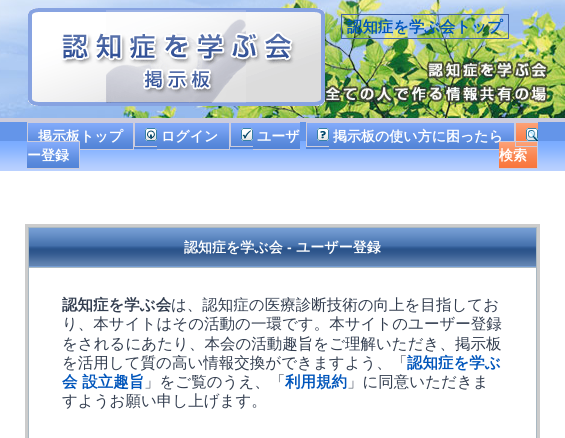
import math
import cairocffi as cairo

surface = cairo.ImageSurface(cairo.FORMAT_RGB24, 565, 438)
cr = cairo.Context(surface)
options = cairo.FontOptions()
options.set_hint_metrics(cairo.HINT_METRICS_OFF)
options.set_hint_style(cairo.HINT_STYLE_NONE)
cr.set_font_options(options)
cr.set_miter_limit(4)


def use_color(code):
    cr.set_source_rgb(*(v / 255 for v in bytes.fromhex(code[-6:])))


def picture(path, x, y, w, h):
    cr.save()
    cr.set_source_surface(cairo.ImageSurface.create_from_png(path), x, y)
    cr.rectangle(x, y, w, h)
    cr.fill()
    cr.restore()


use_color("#ffffff")
cr.paint()
use_color("#6495e9")
cr.rectangle(0, 122, 565, 19)
cr.fill()
picture("img1.png", 0, 141, 565, 30)
picture("img2.png", 0, 0, 565, 118)
use_color("#ccccdd")
cr.rectangle(0, 118, 565, 4)
cr.fill()
picture("img3.png", 28, 8, 297, 98)
cr.rectangle(341.5, 14.5, 167, 24)
use_color("#4466aa")
cr.set_line_width(1)
cr.stroke()
cr.select_font_face("WenQuanYi Zen Hei", cairo.FONT_SLANT_NORMAL, cairo.FONT_WEIGHT_BOLD)
cr.set_font_size(15.4)
use_color("#0055bb")
cr.move_to(347, 32)
cr.show_text("認知症を学ぶ会トップ")
picture("img5.png", 28, 123, 105, 26)
picture("img6.png", 134, 123, 95, 26)
cr.rectangle(27.5, 122.5, 106, 27)
use_color("#ccccdd")
cr.stroke()
cr.set_font_size(14)
use_color("#ffffff")
cr.move_to(38, 141)
cr.show_text("掲示板トップ")
picture("img7.png", 145, 128, 12, 13)
cr.move_to(161, 141)
cr.show_text("ログイン")
use_color("#ccccdd")
cr.rectangle(134, 146, 23, 1)
cr.fill()
cr.rectangle(134, 122, 166, 1)
cr.fill()
cr.rectangle(134, 122, 1, 25)
cr.fill()
cr.rectangle(229, 122, 1, 28)
cr.fill()
cr.rectangle(157, 149, 73, 1)
cr.fill()
picture("img4.png", 27, 123, 273, 45)
picture("img8.png", 241, 128, 12, 13)
use_color("#ffffff")
cr.move_to(257, 141)
cr.show_text("ユーザ")
use_color("#ccccdd")
cr.rectangle(230, 146, 23, 1)
cr.fill()
cr.rectangle(230, 122, 1, 25)
cr.fill()
cr.rectangle(253, 149, 47, 1)
cr.fill()
use_color("#ffffff")
cr.move_to(27, 160)
cr.show_text("ー登録")
use_color("#ccccdd")
cr.rectangle(27, 141, 53, 1)
cr.fill()
cr.rectangle(79, 141, 1, 28)
cr.fill()
cr.rectangle(27, 168, 53, 1)
cr.fill()
picture("img9.png", 306, 123, 208, 26)
use_color("#ffffff")
cr.move_to(333, 141)
cr.show_text("掲示板の使い方に困ったら")
use_color("#ccccdd")
cr.rectangle(306, 122, 232, 1)
cr.fill()
cr.rectangle(514, 122, 1, 19)
cr.fill()
picture("img10.png", 499, 123, 39, 45)
picture("img11.png", 317, 128, 12, 13)
cr.rectangle(306, 146, 23, 1)
cr.fill()
cr.rectangle(306, 122, 1, 25)
cr.fill()
cr.rectangle(329, 149, 170, 1)
cr.fill()
picture("img12.png", 526, 128, 12, 13)
use_color("#ffffff")
cr.move_to(499, 160)
cr.show_text("検索")
use_color("#ccccdd")
cr.rectangle(515, 146, 23, 1)
cr.fill()
cr.rectangle(515, 122, 1, 25)
cr.fill()
cr.rectangle(499, 141, 39, 1)
cr.fill()
cr.rectangle(537, 141, 1, 28)
cr.fill()
cr.rectangle(499, 168, 39, 1)
cr.fill()
use_color("#a9b8c2")
cr.rectangle(26.5, 225.5, 512, 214)
cr.fill_preserve()
use_color("#cccccc")
cr.set_line_width(3)
cr.stroke()
picture("img13.png", 29, 228, 507, 39)
use_color("#ffffff")
cr.move_to(184, 252)
cr.show_text("認知症を学ぶ会")
cr.select_font_face("Liberation Sans", cairo.FONT_SLANT_NORMAL, cairo.FONT_WEIGHT_BOLD)
cr.move_to(287, 252)
cr.show_text("-")
cr.select_font_face("WenQuanYi Zen Hei", cairo.FONT_SLANT_NORMAL, cairo.FONT_WEIGHT_BOLD)
cr.move_to(296, 252)
cr.show_text("ユーザー登録")
cr.rectangle(29, 268, 507, 170)
cr.fill()
cr.set_font_size(15.5)
use_color("#323d4f")
cr.move_to(62, 310)
cr.show_text("認知症を学ぶ会")
cr.select_font_face("WenQuanYi Zen Hei Medium")
cr.move_to(171, 310)
cr.show_text("は、認知症の医療診断技術の向上を目指してお")
cr.move_to(62, 329)
cr.show_text("り、本サイトはその活動の一環です。本サイトのユーザー登録")
cr.move_to(62, 349)
cr.show_text("をされるにあたり、本会の活動趣旨をご理解いただき、掲示板")
cr.move_to(62, 368)
cr.show_text("を活用して質の高い情報交換ができますよう、「")
cr.select_font_face("WenQuanYi Zen Hei", cairo.FONT_SLANT_NORMAL, cairo.FONT_WEIGHT_BOLD)
use_color("#0055bb")
cr.move_to(407, 368)
cr.show_text("認知症を学ぶ")
cr.move_to(62, 387)
cr.show_text("会 設立趣旨")
cr.select_font_face("WenQuanYi Zen Hei Medium")
use_color("#323d4f")
cr.move_to(144, 387)
cr.show_text("」をご覧のうえ、「")
cr.select_font_face("WenQuanYi Zen Hei", cairo.FONT_SLANT_NORMAL, cairo.FONT_WEIGHT_BOLD)
use_color("#0055bb")
cr.move_to(285, 387)
cr.show_text("利用規約")
cr.select_font_face("WenQuanYi Zen Hei Medium")
use_color("#323d4f")
cr.move_to(347, 387)
cr.show_text("」に同意いただきま")
cr.move_to(62, 406)
cr.show_text("すようお願い申し上げます。")
surface.write_to_png("result.png")
